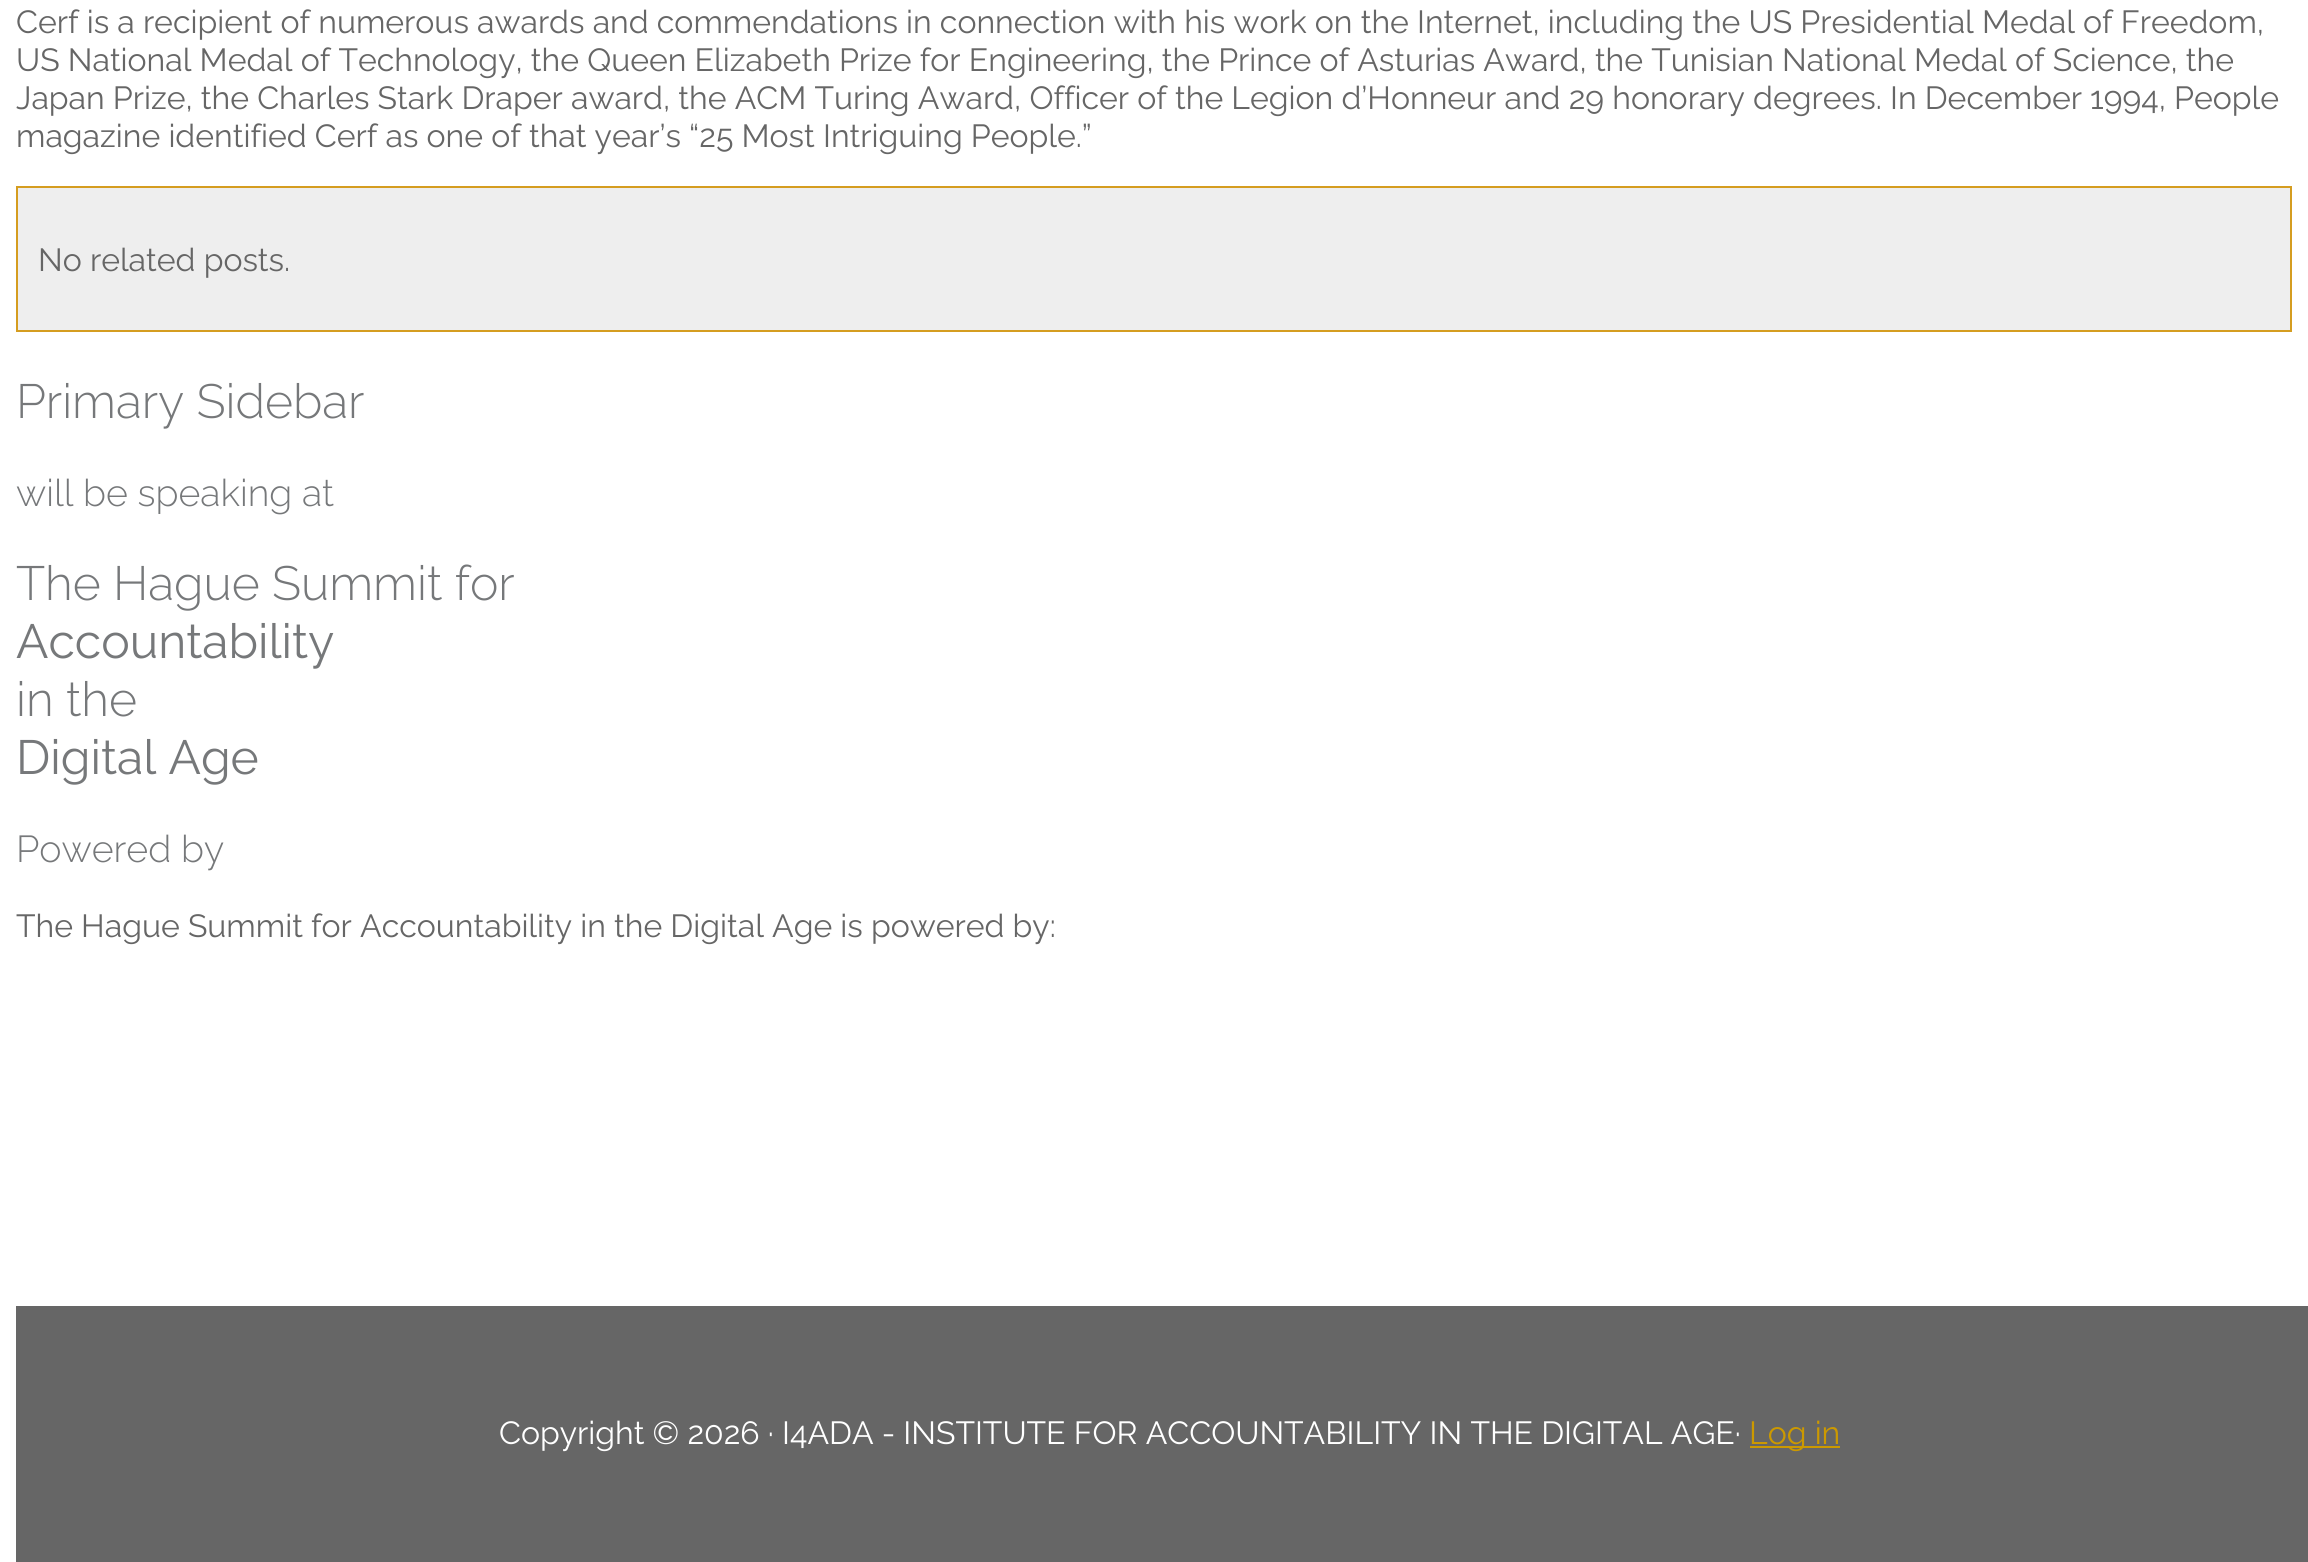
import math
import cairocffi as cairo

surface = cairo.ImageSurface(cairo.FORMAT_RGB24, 2308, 1562)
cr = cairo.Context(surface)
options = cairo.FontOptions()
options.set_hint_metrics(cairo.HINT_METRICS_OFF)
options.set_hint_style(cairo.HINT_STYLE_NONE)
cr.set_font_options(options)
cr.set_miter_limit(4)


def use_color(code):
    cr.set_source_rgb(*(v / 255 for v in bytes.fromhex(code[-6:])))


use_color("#ffffff")
cr.paint()
cr.select_font_face("Raleway")
cr.set_font_size(32)
use_color("#666666")
cr.move_to(16, 33)
cr.show_text("Cerf is a recipient of numerous awards and commendations in connection with his work on the Internet, including the US Presidential Medal of Freedom,")
cr.move_to(16, 71)
cr.show_text("US National Medal of Technology, the Queen Elizabeth Prize for Engineering, the Prince of Asturias Award, the Tunisian National Medal of Science, the")
cr.move_to(16, 109)
cr.show_text("Japan Prize, the Charles Stark Draper award, the ACM Turing Award, Officer of the Legion d’Honneur and 29 honorary degrees. In December 1994, People")
cr.move_to(16, 147)
cr.show_text("magazine identified Cerf as one of that year’s “25 Most Intriguing People.”")
use_color("#eeeeee")
cr.rectangle(17, 187, 2274, 144)
cr.fill_preserve()
use_color("#d59d20")
cr.stroke()
use_color("#666666")
cr.move_to(38, 271)
cr.show_text("No related posts.")
cr.select_font_face("Raleway Light")
cr.set_font_size(48)
use_color("#76787a")
cr.move_to(16, 418)
cr.show_text("Primary Sidebar")
cr.set_font_size(37.5)
cr.move_to(16, 506)
cr.show_text("will be speaking at")
cr.set_font_size(48)
cr.move_to(16, 600)
cr.show_text("The Hague Summit for")
cr.select_font_face("Raleway")
cr.move_to(16, 658)
cr.show_text("Accountability")
cr.select_font_face("Raleway Light")
cr.move_to(16, 716)
cr.show_text("in the")
cr.select_font_face("Raleway")
cr.move_to(16, 774)
cr.show_text("Digital Age")
cr.select_font_face("Raleway Light")
cr.set_font_size(37.5)
cr.move_to(16, 862)
cr.show_text("Powered by")
cr.select_font_face("Raleway")
cr.set_font_size(32)
use_color("#666666")
cr.move_to(16, 937)
cr.show_text("The Hague Summit for Accountability in the Digital Age is powered by:")
cr.rectangle(16, 1306, 2292, 256)
cr.fill()
use_color("#ffffff")
cr.move_to(499, 1444)
cr.show_text("Copyright © 2026 · I4ADA - INSTITUTE FOR ACCOUNTABILITY IN THE DIGITAL AGE·")
use_color("#cc9900")
cr.rectangle(1750, 1446, 90, 2)
cr.fill()
cr.move_to(1749, 1444)
cr.show_text("Log in")
surface.write_to_png("result.png")
